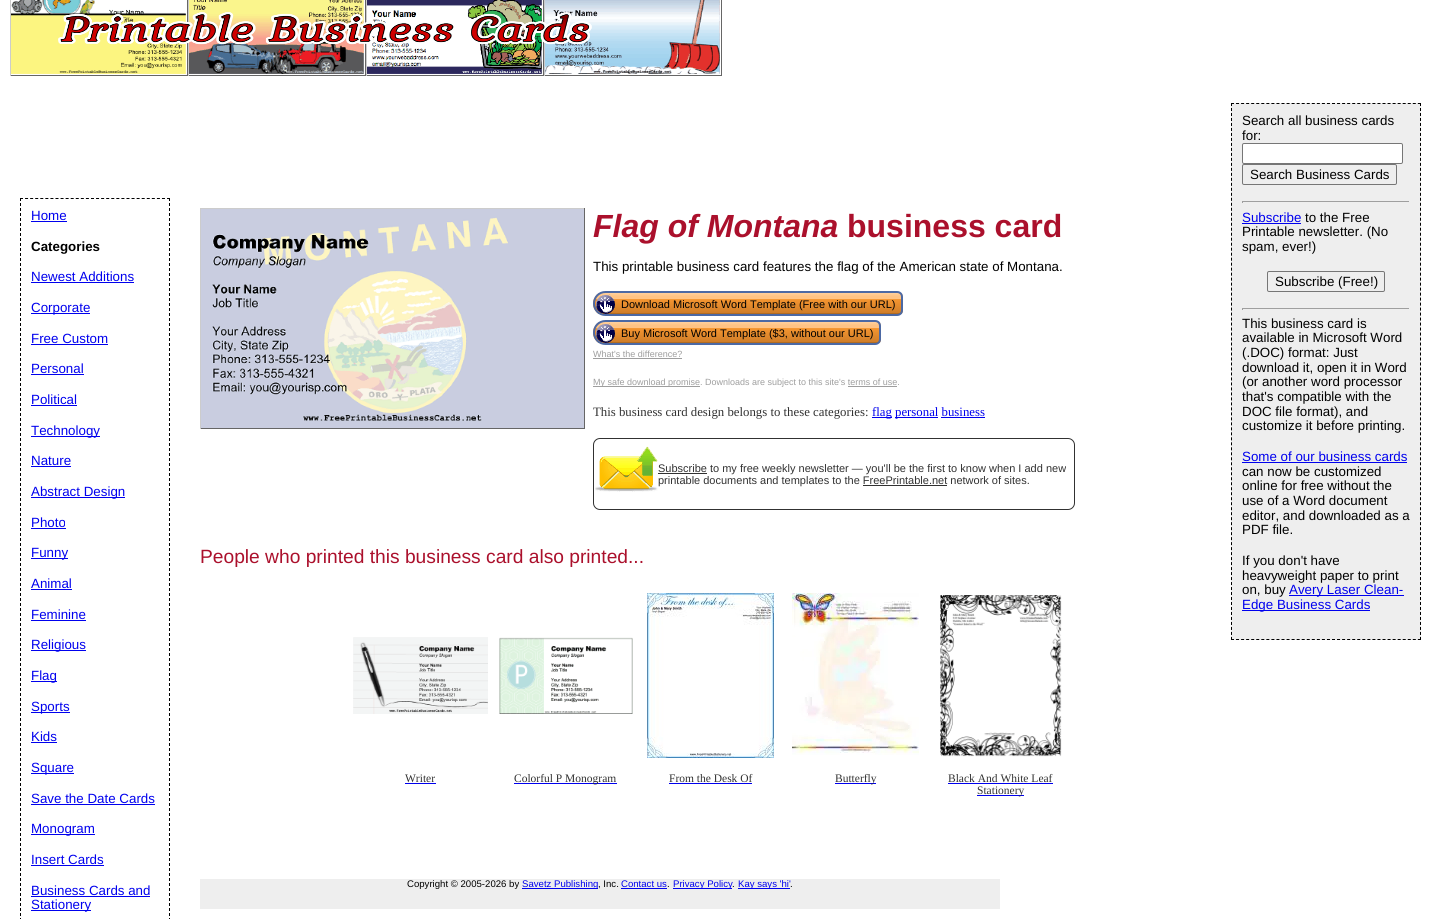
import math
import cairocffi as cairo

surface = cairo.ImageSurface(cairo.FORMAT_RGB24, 1441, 919)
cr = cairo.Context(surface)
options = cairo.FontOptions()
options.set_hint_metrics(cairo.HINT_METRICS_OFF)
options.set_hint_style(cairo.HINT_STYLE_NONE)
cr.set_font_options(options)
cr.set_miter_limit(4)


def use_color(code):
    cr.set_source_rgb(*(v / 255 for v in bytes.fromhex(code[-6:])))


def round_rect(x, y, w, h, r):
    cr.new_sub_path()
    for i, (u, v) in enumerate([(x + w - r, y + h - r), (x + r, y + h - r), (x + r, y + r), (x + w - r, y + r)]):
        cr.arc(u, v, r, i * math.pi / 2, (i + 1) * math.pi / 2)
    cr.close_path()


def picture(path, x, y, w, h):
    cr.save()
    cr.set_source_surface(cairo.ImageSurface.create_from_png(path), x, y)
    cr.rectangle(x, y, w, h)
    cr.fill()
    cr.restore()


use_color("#ffffff")
cr.paint()
use_color("#666666")
cr.rectangle(187, 0, 1, 76)
cr.fill()
cr.rectangle(10, 75, 178, 1)
cr.fill()
use_color("#cccccc")
cr.rectangle(10, 0, 1, 76)
cr.fill()
picture("img1.png", 11, 0, 175, 74)
use_color("#666666")
cr.rectangle(365, 0, 1, 76)
cr.fill()
cr.rectangle(188, 75, 178, 1)
cr.fill()
use_color("#cccccc")
cr.rectangle(188, 0, 1, 76)
cr.fill()
picture("img2.png", 189, 0, 175, 74)
use_color("#666666")
cr.rectangle(543, 0, 1, 76)
cr.fill()
cr.rectangle(366, 75, 178, 1)
cr.fill()
use_color("#cccccc")
cr.rectangle(366, 0, 1, 76)
cr.fill()
picture("img3.png", 367, 0, 175, 74)
use_color("#666666")
cr.rectangle(721, 0, 1, 76)
cr.fill()
cr.rectangle(544, 75, 178, 1)
cr.fill()
use_color("#cccccc")
cr.rectangle(544, 0, 1, 76)
cr.fill()
picture("img4.png", 545, 0, 175, 74)
picture("img5.png", 58, 12, 534, 33)
cr.new_path()
cr.move_to(20, 198.5)
cr.line_to(170, 198.5)
use_color("#000000")
cr.set_line_width(1)
cr.set_dash([3, 2.07])
cr.stroke()
cr.new_path()
cr.move_to(169.5, 198)
cr.line_to(169.5, 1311)
cr.set_dash([3, 2])
cr.stroke()
cr.new_path()
cr.move_to(20.5, 198)
cr.line_to(20.5, 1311)
cr.stroke()
cr.select_font_face("Liberation Sans")
cr.set_font_size(13.35)
use_color("#0000ee")
cr.move_to(31, 220)
cr.show_text("Home")
cr.rectangle(31, 221, 36, 1)
cr.fill()
cr.select_font_face("Liberation Sans", cairo.FONT_SLANT_NORMAL, cairo.FONT_WEIGHT_BOLD)
use_color("#000000")
cr.move_to(31, 251)
cr.show_text("Categories")
cr.select_font_face("Liberation Sans")
use_color("#0000ee")
cr.move_to(31, 281)
cr.show_text("Newest Additions")
cr.rectangle(31, 282, 103, 1)
cr.fill()
cr.rectangle(31, 313, 59, 1)
cr.fill()
cr.move_to(31, 312)
cr.show_text("Corporate")
cr.move_to(31, 343)
cr.show_text("Free Custom")
cr.rectangle(31, 344, 77, 1)
cr.fill()
cr.move_to(31, 373)
cr.show_text("Personal")
cr.rectangle(31, 374, 53, 1)
cr.fill()
cr.move_to(31, 404)
cr.show_text("Political")
cr.rectangle(31, 405, 46, 1)
cr.fill()
cr.rectangle(31, 436, 69, 1)
cr.fill()
cr.move_to(31, 435)
cr.show_text("Technology")
cr.move_to(31, 465)
cr.show_text("Nature")
cr.rectangle(31, 466, 40, 1)
cr.fill()
cr.rectangle(31, 497, 94, 1)
cr.fill()
cr.move_to(31, 496)
cr.show_text("Abstract Design")
cr.move_to(31, 527)
cr.show_text("Photo")
cr.rectangle(31, 528, 35, 1)
cr.fill()
cr.rectangle(31, 558, 37, 1)
cr.fill()
cr.move_to(31, 557)
cr.show_text("Funny")
cr.move_to(31, 588)
cr.show_text("Animal")
cr.rectangle(31, 589, 41, 1)
cr.fill()
cr.move_to(31, 619)
cr.show_text("Feminine")
cr.rectangle(31, 620, 55, 1)
cr.fill()
cr.rectangle(31, 650, 55, 1)
cr.fill()
cr.move_to(31, 649)
cr.show_text("Religious")
cr.rectangle(31, 681, 26, 1)
cr.fill()
cr.move_to(31, 680)
cr.show_text("Flag")
cr.rectangle(31, 712, 39, 1)
cr.fill()
cr.move_to(31, 711)
cr.show_text("Sports")
cr.move_to(31, 741)
cr.show_text("Kids")
cr.rectangle(31, 742, 26, 1)
cr.fill()
cr.rectangle(31, 773, 43, 1)
cr.fill()
cr.move_to(31, 772)
cr.show_text("Square")
cr.move_to(31, 803)
cr.show_text("Save the Date Cards")
cr.rectangle(31, 804, 124, 1)
cr.fill()
cr.rectangle(31, 834, 64, 1)
cr.fill()
cr.move_to(31, 833)
cr.show_text("Monogram")
cr.move_to(31, 864)
cr.show_text("Insert Cards")
cr.rectangle(31, 865, 73, 1)
cr.fill()
cr.move_to(31, 895)
cr.show_text("Business Cards and")
cr.rectangle(31, 896, 119, 1)
cr.fill()
cr.rectangle(31, 910, 60, 1)
cr.fill()
cr.move_to(31, 909)
cr.show_text("Stationery")
use_color("#cccccc")
cr.rectangle(200, 208, 385, 1)
cr.fill()
use_color("#666666")
cr.rectangle(584, 208, 1, 221)
cr.fill()
cr.rectangle(200, 428, 385, 1)
cr.fill()
use_color("#cccccc")
cr.rectangle(200, 208, 1, 221)
cr.fill()
picture("img6.png", 201, 209, 383, 219)
cr.select_font_face("Liberation Sans", cairo.FONT_SLANT_ITALIC, cairo.FONT_WEIGHT_BOLD)
cr.set_font_size(32)
use_color("#ab102c")
cr.move_to(593, 237)
cr.show_text("Flag of Montana")
cr.select_font_face("Liberation Sans", cairo.FONT_SLANT_NORMAL, cairo.FONT_WEIGHT_BOLD)
cr.move_to(847, 237)
cr.show_text("business card")
cr.select_font_face("Liberation Sans")
cr.set_font_size(13.35)
use_color("#000000")
cr.move_to(593, 271)
cr.show_text("This printable business card features the flag of the American state of Montana.")
cr.save()
cr.new_path()
cr.move_to(605.5, 291)
cr.line_to(897, 291)
cr.curve_to(900.5, 291, 903, 293.5, 903, 297)
cr.line_to(903, 310)
cr.curve_to(903, 313.5, 900.5, 316, 897, 316)
cr.line_to(605.5, 316)
cr.curve_to(598.5, 316, 593, 310.5, 593, 303.5)
cr.curve_to(593, 296.5, 598.5, 291, 605.5, 291)
cr.close_path()
cr.clip()
gradient = cairo.LinearGradient(748, 293, 748, 314)
gradient.add_color_stop_rgba(0, 1, 0.816, 0.62, 1)
gradient.add_color_stop_rgba(0.15, 1, 0.765, 0.518, 1)
gradient.add_color_stop_rgba(0.3, 1, 0.765, 0.518, 1)
gradient.add_color_stop_rgba(0.31, 0.957, 0.584, 0.188, 1)
gradient.add_color_stop_rgba(0.94, 0.816, 0.494, 0.161, 1)
gradient.add_color_stop_rgba(0.95, 0.749, 0.455, 0.145, 1)
gradient.add_color_stop_rgba(1, 0.643, 0.392, 0.125, 1)
cr.set_source(gradient)
cr.rectangle(593, 293, 310, 21)
cr.fill()
cr.restore()
cr.new_path()
cr.move_to(605.5, 292)
cr.line_to(897, 292)
cr.curve_to(900, 292, 902, 294, 902, 297)
cr.line_to(902, 310)
cr.curve_to(902, 313, 900, 315, 897, 315)
cr.line_to(605.5, 315)
cr.curve_to(599, 315, 594, 310, 594, 303.5)
cr.curve_to(594, 297, 599, 292, 605.5, 292)
cr.close_path()
use_color("#4c69a4")
cr.set_line_width(2)
cr.set_dash([])
cr.stroke()
picture("img7.png", 596, 294, 19, 20)
cr.set_font_size(11)
use_color("#000000")
cr.move_to(621, 308)
cr.show_text("Download Microsoft Word Template (Free with our URL)")
cr.save()
cr.new_path()
cr.move_to(605.5, 320)
cr.line_to(875, 320)
cr.curve_to(878.5, 320, 881, 322.5, 881, 326)
cr.line_to(881, 339)
cr.curve_to(881, 342.5, 878.5, 345, 875, 345)
cr.line_to(605.5, 345)
cr.curve_to(598.5, 345, 593, 339.5, 593, 332.5)
cr.curve_to(593, 325.5, 598.5, 320, 605.5, 320)
cr.close_path()
cr.clip()
gradient = cairo.LinearGradient(737, 322, 737, 343)
gradient.add_color_stop_rgba(0, 1, 0.816, 0.62, 1)
gradient.add_color_stop_rgba(0.15, 1, 0.765, 0.518, 1)
gradient.add_color_stop_rgba(0.3, 1, 0.765, 0.518, 1)
gradient.add_color_stop_rgba(0.31, 0.957, 0.584, 0.188, 1)
gradient.add_color_stop_rgba(0.94, 0.816, 0.494, 0.161, 1)
gradient.add_color_stop_rgba(0.95, 0.749, 0.455, 0.145, 1)
gradient.add_color_stop_rgba(1, 0.643, 0.392, 0.125, 1)
cr.set_source(gradient)
cr.rectangle(593, 322, 288, 21)
cr.fill()
cr.restore()
cr.new_path()
cr.move_to(605.5, 321)
cr.line_to(875, 321)
cr.curve_to(878, 321, 880, 323, 880, 326)
cr.line_to(880, 339)
cr.curve_to(880, 342, 878, 344, 875, 344)
cr.line_to(605.5, 344)
cr.curve_to(599, 344, 594, 339, 594, 332.5)
cr.curve_to(594, 326, 599, 321, 605.5, 321)
cr.close_path()
use_color("#4c69a4")
cr.stroke()
picture("img7.png", 596, 323, 19, 20)
use_color("#000000")
cr.move_to(621, 337)
cr.show_text("Buy Microsoft Word Template ($3, without our URL)")
cr.set_font_size(9)
use_color("#9e9e9e")
cr.move_to(593, 357)
cr.show_text("What's the difference?")
cr.rectangle(593, 358, 89, 1)
cr.fill()
cr.rectangle(593, 386, 107, 1)
cr.fill()
cr.move_to(593, 385)
cr.show_text("My safe download promise. Downloads are subject to this site's terms of use.")
cr.rectangle(848, 386, 49, 1)
cr.fill()
cr.select_font_face("Liberation Serif")
cr.set_font_size(12.8)
use_color("#313131")
cr.move_to(593, 416)
cr.show_text("This business card design belongs to these categories:")
use_color("#0000ee")
cr.rectangle(872, 417, 20, 1)
cr.fill()
cr.move_to(872, 416)
cr.show_text("flag")
cr.rectangle(895, 417, 43, 1)
cr.fill()
cr.move_to(895, 416)
cr.show_text("personal business")
cr.rectangle(941, 417, 44, 1)
cr.fill()
round_rect(593.5, 438.5, 481, 71, 6.5)
use_color("#313131")
cr.set_line_width(1)
cr.stroke()
picture("img8.png", 595, 446, 63, 46)
cr.rectangle(658, 473, 49, 1)
cr.fill()
cr.select_font_face("Liberation Sans")
cr.set_font_size(11)
cr.move_to(658, 472)
cr.show_text("Subscribe to my free weekly newsletter — you'll be the first to know when I add new")
cr.move_to(658, 484)
cr.show_text("printable documents and templates to the FreePrintable.net network of sites.")
cr.rectangle(863, 485, 84, 1)
cr.fill()
cr.set_font_size(19.2)
use_color("#ab102c")
cr.move_to(200, 563)
cr.show_text("People who printed this business card also printed...")
picture("img9.png", 353, 637, 135, 77)
cr.select_font_face("Liberation Serif")
cr.set_font_size(11.5)
use_color("#313131")
cr.move_to(405, 782)
cr.show_text("Writer")
use_color("#0000ee")
cr.rectangle(405, 783, 31, 1)
cr.fill()
picture("img10.png", 499, 637, 134, 77)
cr.rectangle(514, 783, 103, 1)
cr.fill()
use_color("#313131")
cr.move_to(514, 782)
cr.show_text("Colorful P Monogram")
picture("img11.png", 647, 593, 127, 165)
cr.move_to(669, 782)
cr.show_text("From the Desk Of")
use_color("#0000ee")
cr.rectangle(669, 783, 83, 1)
cr.fill()
picture("img12.png", 792, 593, 127, 162)
cr.rectangle(835, 783, 41, 1)
cr.fill()
use_color("#313131")
cr.move_to(835, 782)
cr.show_text("Butterfly")
picture("img13.png", 940, 595, 122, 162)
cr.move_to(948, 782)
cr.show_text("Black And White Leaf")
use_color("#0000ee")
cr.rectangle(948, 783, 105, 1)
cr.fill()
cr.rectangle(977, 795, 47, 1)
cr.fill()
use_color("#313131")
cr.move_to(977, 794)
cr.show_text("Stationery")
use_color("#eeeeee")
cr.rectangle(1231, 103, 190, 537)
cr.fill()
cr.new_path()
cr.move_to(1231, 103.5)
cr.line_to(1421, 103.5)
use_color("#000000")
cr.set_dash([3, 2.05])
cr.stroke()
cr.new_path()
cr.move_to(1420.5, 103)
cr.line_to(1420.5, 640)
cr.set_dash([3, 1.99])
cr.stroke()
cr.new_path()
cr.move_to(1231, 639.5)
cr.line_to(1421, 639.5)
cr.set_dash([3, 2.05])
cr.stroke()
cr.new_path()
cr.move_to(1231.5, 103)
cr.line_to(1231.5, 640)
cr.set_dash([3, 1.99])
cr.stroke()
cr.select_font_face("Liberation Sans")
cr.set_font_size(13.35)
cr.move_to(1242, 125)
cr.show_text("Search all business cards")
cr.move_to(1242, 140)
cr.show_text("for:")
use_color("#ffffff")
round_rect(1242.5, 143.5, 160, 20, 1.5)
cr.fill_preserve()
use_color("#767676")
cr.set_dash([])
cr.stroke()
round_rect(1242.5, 164.5, 154, 20, 1.5)
cr.stroke()
use_color("#000000")
cr.move_to(1250, 179)
cr.show_text("Search Business Cards")
use_color("#9f9f9f")
cr.rectangle(1242, 201, 168, 1)
cr.fill()
use_color("#eeeeee")
cr.rectangle(1409, 201, 1, 2)
cr.fill()
use_color("#9f9f9f")
cr.rectangle(1242, 201, 1, 2)
cr.fill()
use_color("#0000ee")
cr.move_to(1242, 222)
cr.show_text("Subscribe")
cr.rectangle(1242, 223, 59, 1)
cr.fill()
use_color("#000000")
cr.move_to(1305, 222)
cr.show_text("to the Free")
cr.move_to(1242, 236)
cr.show_text("Printable newsletter. (No")
cr.move_to(1242, 251)
cr.show_text("spam, ever!)")
round_rect(1267.5, 271.5, 117, 20, 1.5)
use_color("#767676")
cr.stroke()
use_color("#000000")
cr.move_to(1275, 286)
cr.show_text("Subscribe (Free!)")
use_color("#9f9f9f")
cr.rectangle(1242, 308, 168, 1)
cr.fill()
use_color("#eeeeee")
cr.rectangle(1409, 308, 1, 2)
cr.fill()
use_color("#9f9f9f")
cr.rectangle(1242, 308, 1, 2)
cr.fill()
use_color("#000000")
cr.move_to(1242, 328)
cr.show_text("This business card is")
cr.move_to(1242, 342)
cr.show_text("available in Microsoft Word")
cr.move_to(1242, 357)
cr.show_text("(.DOC) format: Just")
cr.move_to(1242, 372)
cr.show_text("download it, open it in Word")
cr.move_to(1242, 386)
cr.show_text("(or another word processor")
cr.move_to(1242, 401)
cr.show_text("that's compatible with the")
cr.move_to(1242, 416)
cr.show_text("DOC file format), and")
cr.move_to(1242, 430)
cr.show_text("customize it before printing.")
use_color("#0000ee")
cr.move_to(1242, 461)
cr.show_text("Some of our business cards")
cr.rectangle(1242, 462, 165, 1)
cr.fill()
use_color("#000000")
cr.move_to(1242, 476)
cr.show_text("can now be customized")
cr.move_to(1242, 490)
cr.show_text("online for free without the")
cr.move_to(1242, 505)
cr.show_text("use of a Word document")
cr.move_to(1242, 520)
cr.show_text("editor, and downloaded as a")
cr.move_to(1242, 534)
cr.show_text("PDF file.")
cr.move_to(1242, 565)
cr.show_text("If you don't have")
cr.move_to(1242, 580)
cr.show_text("heavyweight paper to print")
cr.move_to(1242, 594)
cr.show_text("on, buy")
use_color("#0000ee")
cr.rectangle(1289, 595, 115, 1)
cr.fill()
cr.move_to(1289, 594)
cr.show_text("Avery Laser Clean-")
cr.rectangle(1242, 610, 128, 1)
cr.fill()
cr.move_to(1242, 609)
cr.show_text("Edge Business Cards")
use_color("#eeeeee")
cr.rectangle(200, 879, 800, 30)
cr.fill()
cr.set_font_size(9.6)
use_color("#000000")
cr.move_to(407, 887)
cr.show_text("Copyright © 2005-2026 by")
use_color("#0000ee")
cr.rectangle(522, 888, 76, 1)
cr.fill()
cr.move_to(522, 887)
cr.show_text("Savetz Publishing")
use_color("#000000")
cr.move_to(598, 887)
cr.show_text(", Inc.")
use_color("#0000ee")
cr.move_to(621, 887)
cr.show_text("Contact us")
cr.rectangle(621, 888, 46, 1)
cr.fill()
use_color("#000000")
cr.move_to(667, 887)
cr.show_text(".")
use_color("#0000ee")
cr.rectangle(673, 888, 59, 1)
cr.fill()
cr.move_to(673, 887)
cr.show_text("Privacy Policy")
use_color("#000000")
cr.move_to(732, 887)
cr.show_text(".")
use_color("#0000ee")
cr.rectangle(738, 888, 52, 1)
cr.fill()
cr.move_to(738, 887)
cr.show_text("Kay says 'hi'")
use_color("#000000")
cr.move_to(790, 887)
cr.show_text(".")
surface.write_to_png("result.png")
